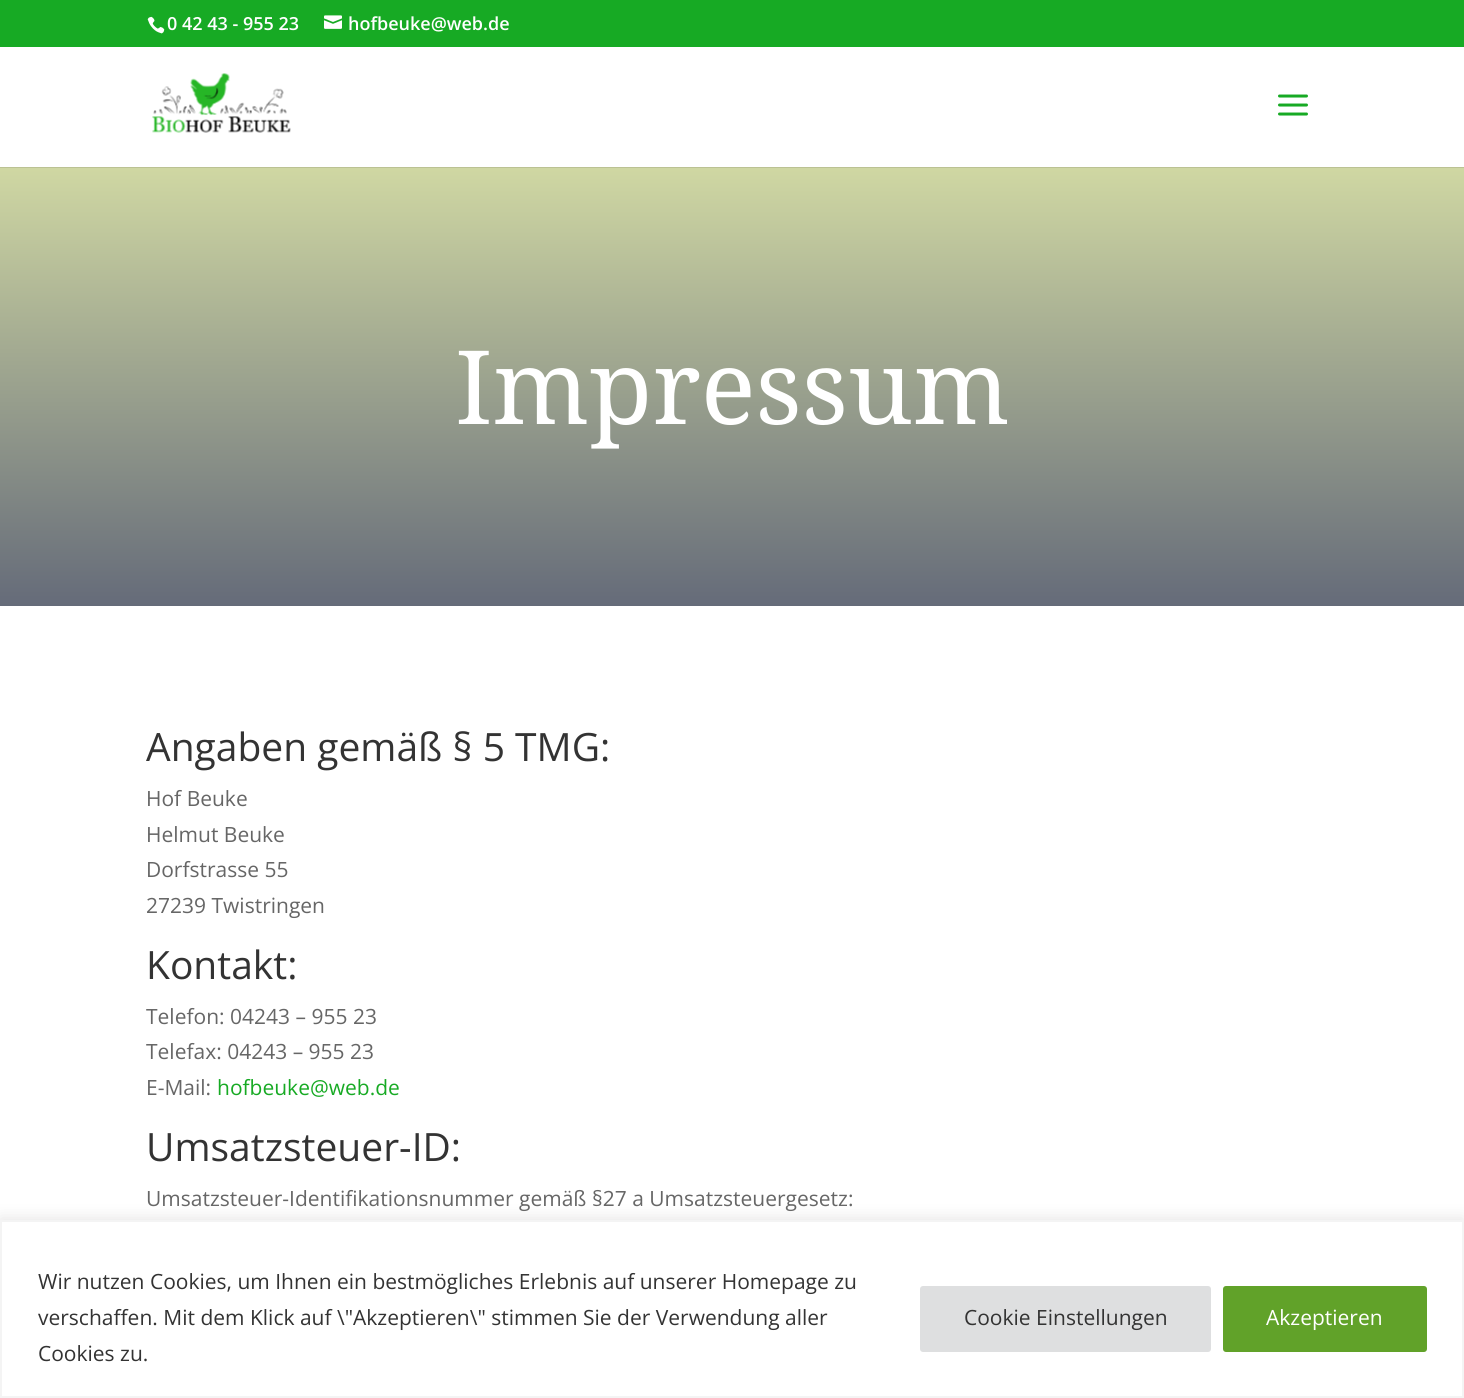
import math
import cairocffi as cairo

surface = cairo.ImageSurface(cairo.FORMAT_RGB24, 1464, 1398)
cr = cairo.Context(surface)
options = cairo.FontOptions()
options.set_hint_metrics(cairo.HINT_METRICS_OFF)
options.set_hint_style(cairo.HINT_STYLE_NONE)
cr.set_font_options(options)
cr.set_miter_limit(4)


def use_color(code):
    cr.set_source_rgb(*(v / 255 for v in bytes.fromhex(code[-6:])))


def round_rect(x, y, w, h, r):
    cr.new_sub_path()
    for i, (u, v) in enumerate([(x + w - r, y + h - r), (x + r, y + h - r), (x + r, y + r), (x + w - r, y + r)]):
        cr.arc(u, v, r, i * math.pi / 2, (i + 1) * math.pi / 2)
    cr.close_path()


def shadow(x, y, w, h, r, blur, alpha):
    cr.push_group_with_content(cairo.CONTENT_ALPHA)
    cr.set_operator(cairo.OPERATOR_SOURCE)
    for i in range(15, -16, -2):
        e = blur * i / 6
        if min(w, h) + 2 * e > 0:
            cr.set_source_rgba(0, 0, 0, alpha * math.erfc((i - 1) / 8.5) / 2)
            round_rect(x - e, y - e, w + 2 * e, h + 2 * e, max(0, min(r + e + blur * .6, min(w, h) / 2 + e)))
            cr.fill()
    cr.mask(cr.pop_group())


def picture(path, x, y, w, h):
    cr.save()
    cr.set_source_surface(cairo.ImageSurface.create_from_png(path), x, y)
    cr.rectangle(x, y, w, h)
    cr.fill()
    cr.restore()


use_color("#ffffff")
cr.paint()
use_color("#17aa24")
cr.rectangle(0, 0, 1464, 47)
cr.fill()
picture("img1.png", 147, 16, 18, 18)
cr.select_font_face("Open Sans SemiBold")
cr.set_font_size(18)
use_color("#ffffff")
cr.move_to(167, 30)
cr.show_text("0 42 43 - 955 23")
picture("img2.png", 324, 15, 18, 14)
cr.move_to(348, 30)
cr.show_text("hofbeuke@web.de")
use_color("#bbc293")
cr.rectangle(0, 167, 1464, 1)
cr.fill()
picture("img3.png", 152, 73, 139, 60)
picture("img4.png", 1278, 94, 30, 22)
gradient = cairo.LinearGradient(732, 165, 732, 606)
gradient.add_color_stop_rgba(0, 0.816, 0.847, 0.639, 1)
gradient.add_color_stop_rgba(1, 0.396, 0.42, 0.475, 1)
cr.set_source(gradient)
cr.rectangle(0, 168, 1464, 438)
cr.fill()
cr.select_font_face("Noto Serif")
cr.set_font_size(102.5)
use_color("#ffffff")
cr.move_to(455, 424)
cr.show_text("Impressum")
cr.select_font_face("Open Sans")
cr.set_font_size(39)
use_color("#333333")
cr.move_to(146, 761)
cr.show_text("Angaben gemäß § 5 TMG:")
cr.set_font_size(21)
use_color("#666666")
cr.move_to(146, 806)
cr.show_text("Hof Beuke")
cr.move_to(146, 842)
cr.show_text("Helmut Beuke")
cr.move_to(146, 877)
cr.show_text("Dorfstrasse 55")
cr.move_to(146, 913)
cr.show_text("27239 Twistringen")
cr.set_font_size(39)
use_color("#333333")
cr.move_to(146, 979)
cr.show_text("Kontakt:")
cr.set_font_size(21)
use_color("#666666")
cr.move_to(146, 1024)
cr.show_text("Telefon: 04243 – 955 23")
cr.move_to(146, 1059)
cr.show_text("Telefax: 04243 – 955 23")
cr.move_to(146, 1095)
cr.show_text("E-Mail:")
use_color("#17aa24")
cr.move_to(217, 1095)
cr.show_text("hofbeuke@web.de")
cr.set_font_size(39)
use_color("#333333")
cr.move_to(146, 1161)
cr.show_text("Umsatzsteuer-ID:")
cr.set_font_size(21)
use_color("#666666")
cr.move_to(146, 1206)
cr.show_text("Umsatzsteuer-Identifikationsnummer gemäß §27 a Umsatzsteuergesetz:")
use_color("#acabab")
shadow(0, 1218, 1464, 179, 0, 7.5, 0.3)
use_color("#ffffff")
cr.rectangle(1, 1221, 1462, 176)
cr.fill_preserve()
use_color("#f4f4f4")
cr.stroke()
use_color("#333333")
cr.move_to(38, 1289)
cr.show_text("Wir nutzen Cookies, um Ihnen ein bestmögliches Erlebnis auf unserer Homepage zu")
cr.move_to(38, 1325)
cr.show_text("verschaffen. Mit dem Klick auf \\\"Akzeptieren\\\" stimmen Sie der Verwendung aller")
cr.move_to(38, 1361)
cr.show_text("Cookies zu.")
use_color("#dedfe0")
round_rect(921.5, 1287.5, 288, 63, 1.5)
cr.fill_preserve()
cr.set_line_width(3)
cr.stroke()
use_color("#333333")
cr.move_to(964, 1325)
cr.show_text("Cookie Einstellungen")
use_color("#61a229")
round_rect(1224.5, 1287.5, 201, 63, 1.5)
cr.fill_preserve()
cr.stroke()
use_color("#ffffff")
cr.move_to(1266, 1325)
cr.show_text("Akzeptieren")
surface.write_to_png("result.png")
